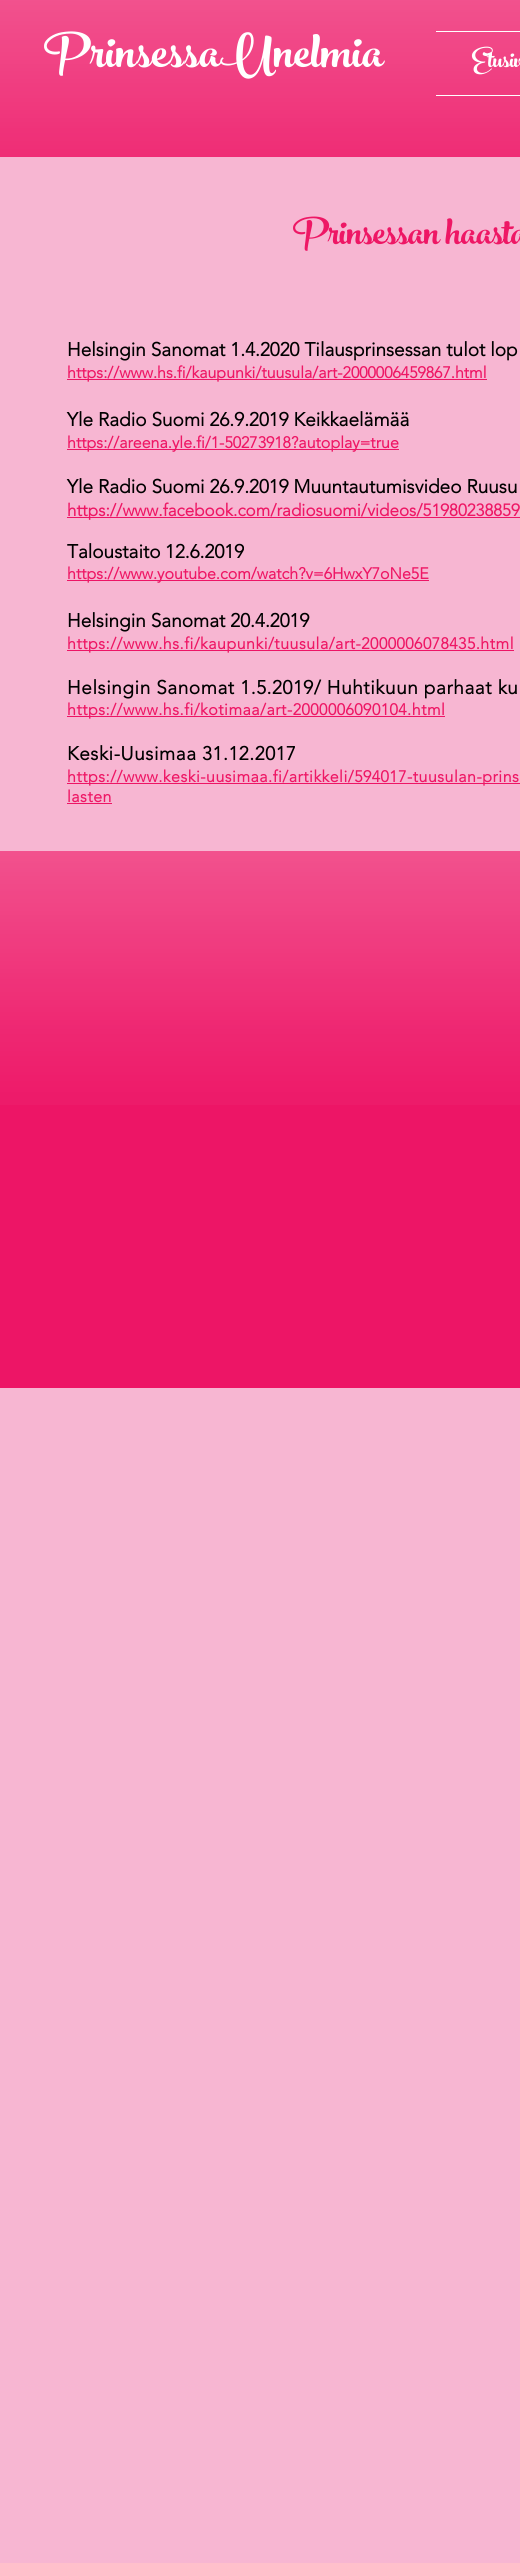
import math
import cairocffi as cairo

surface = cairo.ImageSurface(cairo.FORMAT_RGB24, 520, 2563)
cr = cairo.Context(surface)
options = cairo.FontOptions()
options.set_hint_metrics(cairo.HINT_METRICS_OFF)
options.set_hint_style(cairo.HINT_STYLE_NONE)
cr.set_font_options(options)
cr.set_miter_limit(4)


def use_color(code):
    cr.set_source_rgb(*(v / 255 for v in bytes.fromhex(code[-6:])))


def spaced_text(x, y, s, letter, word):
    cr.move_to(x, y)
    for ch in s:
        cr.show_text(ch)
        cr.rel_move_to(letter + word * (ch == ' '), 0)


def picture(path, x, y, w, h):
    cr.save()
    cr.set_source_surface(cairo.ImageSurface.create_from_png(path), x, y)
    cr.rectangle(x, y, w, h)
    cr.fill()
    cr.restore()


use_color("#f7b6d2")
cr.paint()
use_color("#ed1566")
cr.rectangle(0, 0, 520, 157)
cr.fill()
picture("img1.png", 0, 0, 520, 157)
cr.select_font_face("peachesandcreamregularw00")
cr.set_font_size(70)
use_color("#ffffff")
spaced_text(44, 67, "PrinsessaUnelmia", 0.75, 0)
cr.rectangle(436, 31, 84, 1)
cr.fill()
cr.rectangle(436, 95, 84, 1)
cr.fill()
cr.set_font_size(34)
cr.move_to(472, 67)
cr.show_text("Etusiv")
cr.set_font_size(54)
use_color("#ee1765")
cr.move_to(293, 244)
cr.show_text("Prinsessan haasta")
cr.select_font_face("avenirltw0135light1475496", cairo.FONT_SLANT_NORMAL, cairo.FONT_WEIGHT_BOLD)
cr.set_font_size(19)
use_color("#000000")
cr.move_to(67, 356)
cr.show_text("Helsingin Sanomat 1.4.2020 Tilausprinsessan tulot lop")
use_color("#ed1566")
cr.rectangle(67, 379, 420, 1)
cr.fill()
cr.set_font_size(16)
use_color("#ee1765")
cr.move_to(67, 378)
cr.show_text("https://www.hs.fi/kaupunki/tuusula/art-2000006459867.html")
cr.set_font_size(19)
use_color("#000000")
cr.move_to(67, 426)
cr.show_text("Yle Radio Suomi 26.9.2019 Keikkaelämää")
use_color("#ed1566")
cr.rectangle(67, 449, 332, 1)
cr.fill()
cr.set_font_size(16)
use_color("#ee1765")
cr.move_to(67, 448)
cr.show_text("https://areena.yle.fi/1-50273918?autoplay=true")
cr.set_font_size(19)
use_color("#000000")
cr.move_to(67, 493)
cr.show_text("Yle Radio Suomi 26.9.2019 Muuntautumisvideo Ruusu")
use_color("#ed1566")
cr.rectangle(67, 517, 453, 1)
cr.fill()
cr.set_font_size(17)
use_color("#ee1765")
cr.move_to(67, 516)
cr.show_text("https://www.facebook.com/radiosuomi/videos/51980238859")
cr.set_font_size(19)
use_color("#000000")
cr.move_to(67, 558)
cr.show_text("Taloustaito")
cr.move_to(165, 558)
cr.show_text("12.6.2019")
use_color("#ed1566")
cr.rectangle(67, 580, 362, 1)
cr.fill()
cr.set_font_size(16)
use_color("#ee1765")
cr.move_to(67, 579)
cr.show_text("https://www.youtube.com/watch?v=6HwxY7oNe5E")
cr.set_font_size(19)
use_color("#000000")
cr.move_to(67, 627)
cr.show_text("Helsingin Sanomat 20.4.2019")
use_color("#ed1566")
cr.rectangle(67, 650, 447, 1)
cr.fill()
cr.set_font_size(16)
use_color("#ee1765")
spaced_text(67, 649, "https://www.hs.fi/kaupunki/tuusula/art-2000006078435.html", 0.48, 0)
cr.set_font_size(19)
use_color("#000000")
spaced_text(67, 694, "Helsingin Sanomat 1.5.2019/ Huhtikuun parhaat ku", 0.55, 0)
use_color("#ed1566")
cr.rectangle(67, 716, 378, 1)
cr.fill()
cr.set_font_size(16)
use_color("#ee1765")
spaced_text(67, 715, "https://www.hs.fi/kotimaa/art-2000006090104.html", 0.48, 0)
cr.set_font_size(19)
use_color("#000000")
spaced_text(67, 760, "Keski-Uusimaa 31.12.2017", 0.55, 0)
use_color("#ed1566")
cr.rectangle(67, 783, 453, 1)
cr.fill()
cr.set_font_size(16)
use_color("#ee1765")
spaced_text(67, 782, "https://www.keski-uusimaa.fi/artikkeli/594017-tuusulan-prins", 0.48, 0)
spaced_text(67, 802, "lasten", 0.48, 0)
use_color("#ed1566")
cr.rectangle(67, 803, 45, 1)
cr.fill()
cr.rectangle(0, 851, 520, 537)
cr.fill()
picture("img2.png", 0, 851, 520, 254)
surface.write_to_png("result.png")
